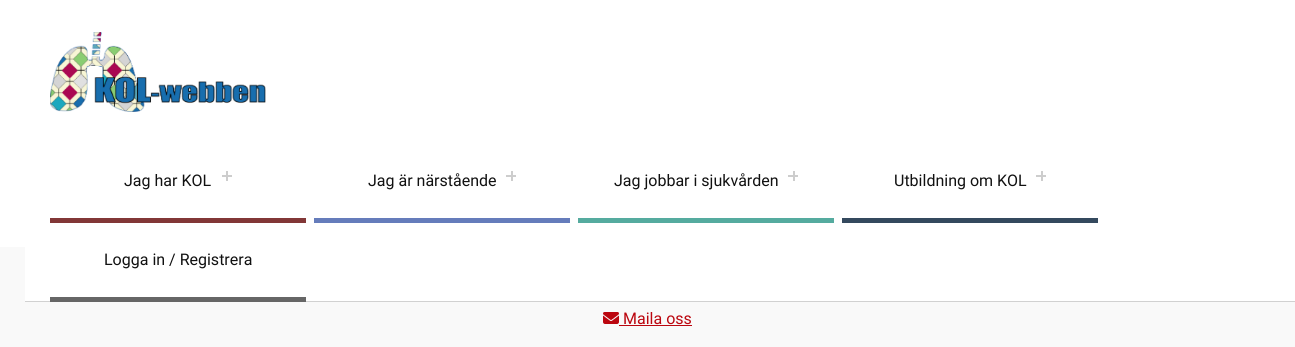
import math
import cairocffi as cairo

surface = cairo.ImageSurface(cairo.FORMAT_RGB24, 1295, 347)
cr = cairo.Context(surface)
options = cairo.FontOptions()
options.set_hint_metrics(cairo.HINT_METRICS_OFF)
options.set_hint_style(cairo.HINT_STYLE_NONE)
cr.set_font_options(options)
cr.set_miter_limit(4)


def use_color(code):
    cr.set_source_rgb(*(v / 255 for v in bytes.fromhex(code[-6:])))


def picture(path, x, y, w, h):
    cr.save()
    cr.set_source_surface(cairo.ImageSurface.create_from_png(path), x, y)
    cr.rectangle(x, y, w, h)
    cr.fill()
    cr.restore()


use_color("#ffffff")
cr.paint()
picture("img1.png", 50, 32, 216, 80)
use_color("#f9f9f9")
cr.rectangle(0, 247, 1295, 100)
cr.fill()
use_color("#ffffff")
cr.rectangle(25, 247, 1270, 54)
cr.fill()
use_color("#d1d1d1")
cr.rectangle(25, 301, 1270, 1)
cr.fill()
use_color("#823737")
cr.rectangle(50, 218, 256, 5)
cr.fill()
cr.select_font_face("Roboto")
cr.set_font_size(16)
use_color("#111111")
cr.move_to(124, 186)
cr.show_text("Jag har KOL")
use_color("#cdcdcd")
cr.rectangle(222, 175, 10, 2)
cr.fill()
cr.rectangle(226, 171, 2, 10)
cr.fill()
use_color("#657cbb")
cr.rectangle(314, 218, 256, 5)
cr.fill()
use_color("#111111")
cr.move_to(368, 186)
cr.show_text("Jag är närstående")
use_color("#cdcdcd")
cr.rectangle(506, 175, 10, 2)
cr.fill()
cr.rectangle(511, 171, 2, 10)
cr.fill()
use_color("#55ab9f")
cr.rectangle(578, 218, 256, 5)
cr.fill()
use_color("#111111")
cr.move_to(614, 186)
cr.show_text("Jag jobbar i sjukvården")
use_color("#cdcdcd")
cr.rectangle(788, 175, 10, 2)
cr.fill()
cr.rectangle(793, 171, 2, 10)
cr.fill()
use_color("#34495e")
cr.rectangle(842, 218, 256, 5)
cr.fill()
use_color("#111111")
cr.move_to(894, 186)
cr.show_text("Utbildning om KOL")
use_color("#cdcdcd")
cr.rectangle(1036, 175, 10, 2)
cr.fill()
cr.rectangle(1041, 171, 2, 10)
cr.fill()
use_color("#666666")
cr.rectangle(50, 297, 256, 5)
cr.fill()
use_color("#111111")
cr.move_to(104, 265)
cr.show_text("Logga in / Registrera")
picture("img2.png", 603, 312, 16, 12)
use_color("#bb060f")
cr.move_to(623, 324)
cr.show_text("Maila oss")
cr.rectangle(619, 325, 73, 1)
cr.fill()
surface.write_to_png("result.png")
